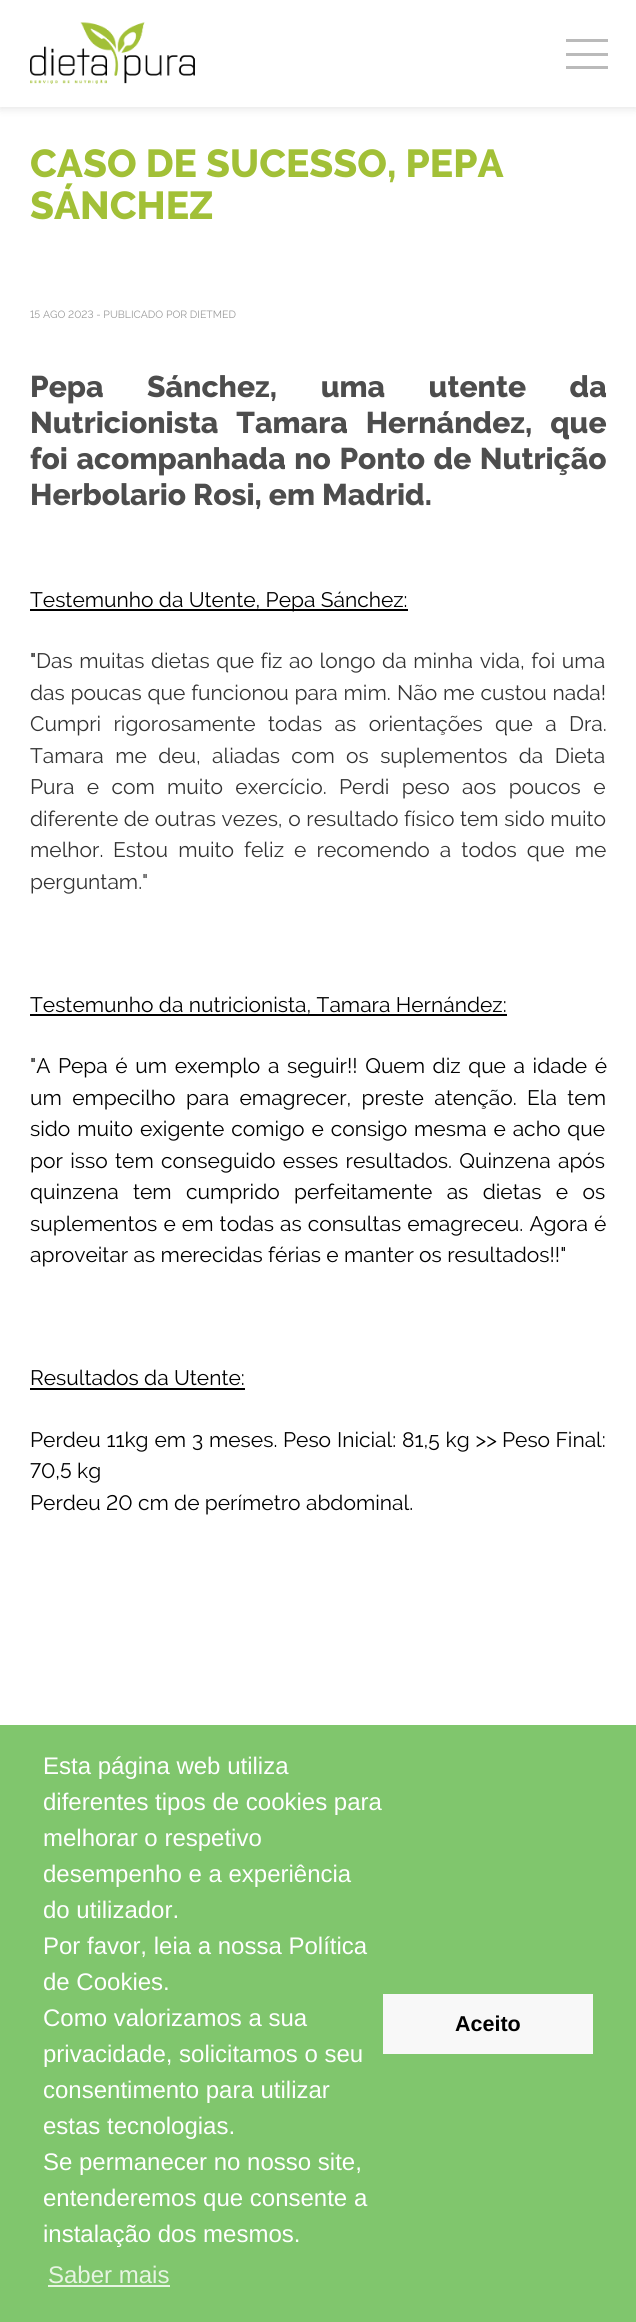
import math
import cairocffi as cairo

surface = cairo.ImageSurface(cairo.FORMAT_RGB24, 636, 2322)
cr = cairo.Context(surface)
options = cairo.FontOptions()
options.set_hint_metrics(cairo.HINT_METRICS_OFF)
options.set_hint_style(cairo.HINT_STYLE_NONE)
cr.set_font_options(options)
cr.set_miter_limit(4)


def use_color(code):
    cr.set_source_rgb(*(v / 255 for v in bytes.fromhex(code[-6:])))


def spaced_text(x, y, s, letter, word):
    cr.move_to(x, y)
    for ch in s:
        cr.show_text(ch)
        cr.rel_move_to(letter + word * (ch == ' '), 0)


def round_rect(x, y, w, h, r):
    cr.new_sub_path()
    for i, (u, v) in enumerate([(x + w - r, y + h - r), (x + r, y + h - r), (x + r, y + r), (x + w - r, y + r)]):
        cr.arc(u, v, r, i * math.pi / 2, (i + 1) * math.pi / 2)
    cr.close_path()


def shadow(x, y, w, h, r, blur, alpha):
    cr.push_group_with_content(cairo.CONTENT_ALPHA)
    cr.set_operator(cairo.OPERATOR_SOURCE)
    for i in range(15, -16, -2):
        e = blur * i / 6
        if min(w, h) + 2 * e > 0:
            cr.set_source_rgba(0, 0, 0, alpha * math.erfc((i - 1) / 8.5) / 2)
            round_rect(x - e, y - e, w + 2 * e, h + 2 * e, max(0, min(r + e + blur * .6, min(w, h) / 2 + e)))
            cr.fill()
    cr.mask(cr.pop_group())


def picture(path, x, y, w, h):
    cr.save()
    cr.set_source_surface(cairo.ImageSurface.create_from_png(path), x, y)
    cr.rectangle(x, y, w, h)
    cr.fill()
    cr.restore()


use_color("#ffffff")
cr.paint()
use_color("#000000")
shadow(0, 3, 636, 107, 0, 4.5, 0.06)
shadow(0, 0, 636, 107, 0, 4.5, 0.06)
use_color("#ffffff")
cr.rectangle(0, 0, 636, 107)
cr.fill()
picture("img1.png", 30, 22, 165, 62)
use_color("#bababa")
cr.rectangle(566, 39, 42, 3)
cr.fill()
cr.rectangle(566, 53, 42, 3)
cr.fill()
cr.rectangle(566, 66, 42, 3)
cr.fill()
cr.select_font_face("Raleway ExtraBold")
cr.set_font_size(39)
use_color("#a2c037")
cr.move_to(30, 177)
cr.show_text("CASO DE SUCESSO, PEPA")
cr.move_to(30, 219)
cr.show_text("SÁNCHEZ")
cr.select_font_face("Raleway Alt")
cr.set_font_size(10.5)
use_color("#999999")
cr.move_to(30, 318)
cr.show_text("15 AGO 2023 - PUBLICADO POR DIETMED")
cr.select_font_face("Raleway ExtraBold")
cr.set_font_size(30)
use_color("#4d4d4d")
spaced_text(30, 397, "Pepa Sánchez, uma utente da", 0, 36.5)
spaced_text(30, 433, "Nutricionista Tamara Hernández, que", 0, 11)
spaced_text(30, 469, "foi acompanhada no Ponto de Nutrição", 0, 1.5)
cr.move_to(30, 505)
cr.show_text("Herbolario Rosi, em Madrid.")
use_color("#000000")
cr.rectangle(30, 609, 378, 2)
cr.fill()
cr.select_font_face("Raleway")
cr.set_font_size(21)
cr.move_to(30, 607)
cr.show_text("Testemunho da Utente, Pepa Sánchez:")
cr.move_to(30, 668)
cr.show_text("\"")
use_color("#333333")
spaced_text(36, 668, "Das muitas dietas que fiz ao longo da minha vida, foi uma", 0, 1.25)
spaced_text(30, 700, "das poucas que funcionou para mim.", 0, 0.5)
spaced_text(397, 700, "Não me custou nada!", 0, 0.5)
spaced_text(30, 731, "Cumpri rigorosamente todas as orientações que a Dra.", 0, 7)
spaced_text(30, 763, "Tamara me deu, aliadas com os suplementos da Dieta", 0, 6)
spaced_text(30, 794, "Pura e com muito exercício.", 0, 7)
spaced_text(339, 794, "Perdi peso aos poucos e", 0, 7)
spaced_text(30, 826, "diferente de outras vezes, o resultado físico tem sido muito", 0, 0.25)
cr.move_to(30, 857)
cr.show_text("melhor.")
spaced_text(113, 857, "Estou muito feliz e recomendo a todos que me", 0, 4.75)
cr.move_to(30, 889)
cr.show_text("perguntam.\"")
use_color("#000000")
cr.move_to(30, 1012)
cr.show_text("Testemunho da nutricionista, Tamara Hernández:")
cr.rectangle(30, 1014, 477, 2)
cr.fill()
spaced_text(30, 1073, "\"A Pepa é um exemplo a seguir!! Quem diz que a idade é", 0, 2.25)
spaced_text(30, 1105, "um empecilho para emagrecer, preste atenção. Ela tem", 0, 5)
spaced_text(30, 1136, "sido muito exigente comigo e consigo mesma e acho que", 0, 1.5)
spaced_text(30, 1168, "por isso tem conseguido esses resultados. Quinzena após", 0, 2)
spaced_text(30, 1199, "quinzena tem cumprido perfeitamente as dietas e os", 0, 9)
spaced_text(30, 1231, "suplementos e em todas as consultas emagreceu. Agora é", 0, 0.75)
cr.move_to(30, 1262)
cr.show_text("aproveitar as merecidas férias e manter os resultados!!\"")
cr.move_to(30, 1385)
cr.show_text("Resultados da Utente:")
cr.rectangle(30, 1388, 215, 2)
cr.fill()
spaced_text(30, 1447, "Perdeu 11kg em 3 meses.", 0, 0.5)
spaced_text(283, 1447, "Peso Inicial: 81,5 kg >>", 0, 0.5)
cr.move_to(502, 1447)
cr.show_text("Peso Final:")
cr.select_font_face("Raleway Alt")
cr.move_to(30, 1478)
cr.show_text("70,5 kg")
cr.move_to(30, 1510)
cr.show_text("Perdeu 20 cm de perímetro abdominal.")
use_color("#80c66d")
cr.rectangle(0, 1725, 636, 597)
cr.fill()
cr.select_font_face("Liberation Sans")
cr.set_font_size(24)
use_color("#ffffff")
cr.move_to(43, 1774)
cr.show_text("Esta página web utiliza")
cr.move_to(43, 1810)
cr.show_text("diferentes tipos de cookies para")
cr.move_to(43, 1846)
cr.show_text("melhorar o respetivo")
cr.move_to(43, 1882)
cr.show_text("desempenho e a experiência")
cr.move_to(43, 1918)
cr.show_text("do utilizador.")
cr.move_to(43, 1954)
cr.show_text("Por favor, leia a nossa Política")
cr.move_to(43, 1990)
cr.show_text("de Cookies.")
cr.move_to(43, 2026)
cr.show_text("Como valorizamos a sua")
cr.move_to(43, 2062)
cr.show_text("privacidade, solicitamos o seu")
cr.move_to(43, 2098)
cr.show_text("consentimento para utilizar")
cr.move_to(43, 2134)
cr.show_text("estas tecnologias.")
cr.move_to(43, 2170)
cr.show_text("Se permanecer no nosso site,")
cr.move_to(43, 2206)
cr.show_text("entenderemos que consente a")
cr.move_to(43, 2242)
cr.show_text("instalação dos mesmos.")
use_color("#e6f4e2")
cr.move_to(48, 2283)
cr.show_text("Saber mais")
cr.rectangle(48, 2285, 122, 2)
cr.fill()
use_color("#f8f8f8")
cr.rectangle(383, 1994, 210, 60)
cr.fill()
cr.select_font_face("Liberation Sans", cairo.FONT_SLANT_NORMAL, cairo.FONT_WEIGHT_BOLD)
cr.set_font_size(21.5)
use_color("#000000")
cr.move_to(455, 2031)
cr.show_text("Aceito")
surface.write_to_png("result.png")
